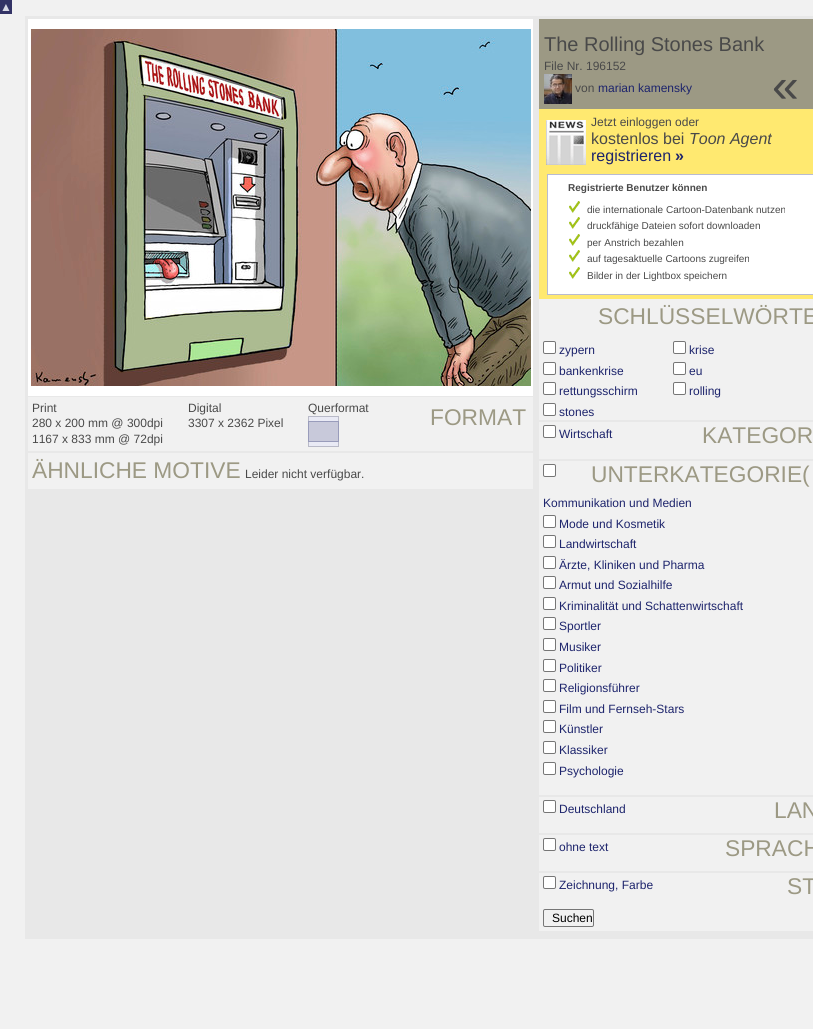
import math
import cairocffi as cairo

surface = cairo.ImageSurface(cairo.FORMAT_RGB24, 813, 1029)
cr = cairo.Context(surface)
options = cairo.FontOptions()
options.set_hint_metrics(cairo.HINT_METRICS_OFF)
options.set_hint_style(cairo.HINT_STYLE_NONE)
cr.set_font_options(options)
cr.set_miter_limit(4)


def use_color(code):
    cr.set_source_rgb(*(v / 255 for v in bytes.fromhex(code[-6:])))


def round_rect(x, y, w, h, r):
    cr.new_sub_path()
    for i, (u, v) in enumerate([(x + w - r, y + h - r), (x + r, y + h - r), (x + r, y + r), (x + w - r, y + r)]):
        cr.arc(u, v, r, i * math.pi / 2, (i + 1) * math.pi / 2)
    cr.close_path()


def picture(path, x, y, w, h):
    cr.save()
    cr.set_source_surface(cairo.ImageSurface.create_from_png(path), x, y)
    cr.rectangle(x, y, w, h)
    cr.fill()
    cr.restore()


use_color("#f1f1f1")
cr.paint()
use_color("#333366")
cr.rectangle(0, 0, 12, 14)
cr.fill()
cr.select_font_face("Liberation Sans")
cr.set_font_size(12)
use_color("#d8d9e5")
cr.move_to(0, 11)
cr.show_text("▲")
use_color("#e8e8e8")
cr.rectangle(25, 16, 788, 923)
cr.fill()
use_color("#ffffff")
cr.rectangle(28, 19, 505, 377)
cr.fill()
picture("img1.png", 31, 29, 500, 357)
use_color("#f1f1f1")
cr.rectangle(28, 397, 505, 54)
cr.fill()
use_color("#494949")
cr.move_to(32, 412)
cr.show_text("Print")
cr.move_to(32, 427)
cr.show_text("280 x 200 mm @ 300dpi")
cr.move_to(32, 443)
cr.show_text("1167 x 833 mm @ 72dpi")
cr.move_to(188, 412)
cr.show_text("Digital")
cr.move_to(188, 427)
cr.show_text("3307 x 2362 Pixel")
cr.move_to(308, 412)
cr.show_text("Querformat")
picture("img2.png", 308, 416, 31, 31)
cr.set_font_size(22.75)
use_color("#9c9984")
cr.move_to(430, 425)
cr.show_text("FORMAT")
use_color("#f1f1f1")
cr.rectangle(28, 453, 505, 36)
cr.fill()
use_color("#9c9984")
cr.move_to(32, 478)
cr.show_text("ÄHNLICHE MOTIVE")
cr.set_font_size(12)
use_color("#494949")
cr.move_to(245, 478)
cr.show_text("Leider nicht verfügbar.")
use_color("#9c9984")
cr.rectangle(539, 19, 274, 90)
cr.fill()
cr.set_font_size(20)
use_color("#494949")
cr.move_to(544, 51)
cr.show_text("The Rolling Stones Bank")
cr.set_font_size(12)
cr.move_to(544, 70)
cr.show_text("File Nr. 196152")
picture("img3.png", 544, 74, 28, 30)
cr.move_to(575, 92)
cr.show_text("von")
use_color("#1d246c")
cr.move_to(598, 92)
cr.show_text("marian kamensky")
cr.set_font_size(48)
use_color("#494949")
cr.move_to(772, 102)
cr.show_text("«")
use_color("#ffe970")
cr.rectangle(539, 109, 274, 190)
cr.fill()
picture("img4.png", 546, 120, 40, 45)
cr.set_font_size(12)
use_color("#494949")
cr.move_to(591, 126)
cr.show_text("Jetzt einloggen oder")
cr.set_font_size(16)
cr.move_to(591, 144)
cr.show_text("kostenlos bei")
cr.select_font_face("Liberation Sans", cairo.FONT_SLANT_ITALIC)
cr.move_to(689, 144)
cr.show_text("Toon Agent")
cr.select_font_face("Liberation Sans")
use_color("#1d246c")
cr.move_to(591, 161)
cr.show_text("registrieren")
cr.select_font_face("Liberation Sans", cairo.FONT_SLANT_NORMAL, cairo.FONT_WEIGHT_BOLD)
cr.move_to(675, 161)
cr.show_text("»")
use_color("#ffffff")
cr.rectangle(547.5, 174.5, 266, 120)
cr.fill_preserve()
use_color("#b9bbd0")
cr.set_line_width(1)
cr.stroke()
cr.set_font_size(10)
use_color("#494949")
cr.move_to(568, 191)
cr.show_text("Registrierte Benutzer können")
picture("img5.png", 569, 201, 11, 12)
cr.select_font_face("Liberation Sans")
cr.move_to(587, 213)
cr.show_text("die internationale Cartoon-Datenbank nutzen")
picture("img5.png", 569, 217, 11, 12)
cr.move_to(587, 229)
cr.show_text("druckfähige Dateien sofort downloaden")
picture("img5.png", 569, 234, 11, 12)
cr.move_to(587, 246)
cr.show_text("per Anstrich bezahlen")
picture("img5.png", 569, 250, 11, 12)
cr.move_to(587, 262)
cr.show_text("auf tagesaktuelle Cartoons zugreifen")
picture("img5.png", 569, 267, 11, 12)
cr.move_to(587, 279)
cr.show_text("Bilder in der Lightbox speichern")
use_color("#f1f1f1")
cr.rectangle(539, 299, 274, 632)
cr.fill()
cr.set_font_size(22.75)
use_color("#9c9984")
cr.move_to(598, 324)
cr.show_text("SCHLÜSSELWÖRTE")
use_color("#ffffff")
round_rect(543.5, 341.5, 12, 12, 1.5)
cr.fill_preserve()
use_color("#767676")
cr.stroke()
cr.set_font_size(12)
use_color("#1d246c")
cr.move_to(559, 354)
cr.show_text("zypern")
use_color("#ffffff")
round_rect(673.5, 341.5, 12, 12, 1.5)
cr.fill_preserve()
use_color("#767676")
cr.stroke()
use_color("#1d246c")
cr.move_to(689, 354)
cr.show_text("krise")
use_color("#ffffff")
round_rect(543.5, 362.5, 12, 12, 1.5)
cr.fill_preserve()
use_color("#767676")
cr.stroke()
use_color("#1d246c")
cr.move_to(559, 375)
cr.show_text("bankenkrise")
use_color("#ffffff")
round_rect(673.5, 362.5, 12, 12, 1.5)
cr.fill_preserve()
use_color("#767676")
cr.stroke()
use_color("#1d246c")
cr.move_to(689, 375)
cr.show_text("eu")
use_color("#ffffff")
round_rect(543.5, 382.5, 12, 12, 1.5)
cr.fill_preserve()
use_color("#767676")
cr.stroke()
use_color("#1d246c")
cr.move_to(559, 395)
cr.show_text("rettungsschirm")
use_color("#ffffff")
round_rect(673.5, 382.5, 12, 12, 1.5)
cr.fill_preserve()
use_color("#767676")
cr.stroke()
use_color("#1d246c")
cr.move_to(689, 395)
cr.show_text("rolling")
use_color("#ffffff")
round_rect(543.5, 403.5, 12, 12, 1.5)
cr.fill_preserve()
use_color("#767676")
cr.stroke()
use_color("#1d246c")
cr.move_to(559, 416)
cr.show_text("stones")
use_color("#e8e8e8")
cr.rectangle(539, 420, 274, 2)
cr.fill()
use_color("#ffffff")
round_rect(543.5, 425.5, 12, 12, 1.5)
cr.fill_preserve()
use_color("#767676")
cr.stroke()
use_color("#1d246c")
cr.move_to(559, 438)
cr.show_text("Wirtschaft")
cr.set_font_size(22.75)
use_color("#9c9984")
cr.move_to(702, 443)
cr.show_text("KATEGOR")
use_color("#e8e8e8")
cr.rectangle(539, 459, 274, 2)
cr.fill()
use_color("#ffffff")
round_rect(543.5, 464.5, 12, 12, 1.5)
cr.fill_preserve()
use_color("#767676")
cr.stroke()
use_color("#9c9984")
cr.move_to(591, 482)
cr.show_text("UNTERKATEGORIE(")
cr.set_font_size(12)
use_color("#1d246c")
cr.move_to(543, 507)
cr.show_text("Kommunikation und Medien")
use_color("#ffffff")
round_rect(543.5, 515.5, 12, 12, 1.5)
cr.fill_preserve()
use_color("#767676")
cr.stroke()
use_color("#1d246c")
cr.move_to(559, 528)
cr.show_text("Mode und Kosmetik")
use_color("#ffffff")
round_rect(543.5, 535.5, 12, 12, 1.5)
cr.fill_preserve()
use_color("#767676")
cr.stroke()
use_color("#1d246c")
cr.move_to(559, 548)
cr.show_text("Landwirtschaft")
use_color("#ffffff")
round_rect(543.5, 556.5, 12, 12, 1.5)
cr.fill_preserve()
use_color("#767676")
cr.stroke()
use_color("#1d246c")
cr.move_to(559, 569)
cr.show_text("Ärzte, Kliniken und Pharma")
use_color("#ffffff")
round_rect(543.5, 576.5, 12, 12, 1.5)
cr.fill_preserve()
use_color("#767676")
cr.stroke()
use_color("#1d246c")
cr.move_to(559, 589)
cr.show_text("Armut und Sozialhilfe")
use_color("#ffffff")
round_rect(543.5, 597.5, 12, 12, 1.5)
cr.fill_preserve()
use_color("#767676")
cr.stroke()
use_color("#1d246c")
cr.move_to(559, 610)
cr.show_text("Kriminalität und Schattenwirtschaft")
use_color("#ffffff")
round_rect(543.5, 617.5, 12, 12, 1.5)
cr.fill_preserve()
use_color("#767676")
cr.stroke()
use_color("#1d246c")
cr.move_to(559, 630)
cr.show_text("Sportler")
use_color("#ffffff")
round_rect(543.5, 638.5, 12, 12, 1.5)
cr.fill_preserve()
use_color("#767676")
cr.stroke()
use_color("#1d246c")
cr.move_to(559, 651)
cr.show_text("Musiker")
use_color("#ffffff")
round_rect(543.5, 659.5, 12, 12, 1.5)
cr.fill_preserve()
use_color("#767676")
cr.stroke()
use_color("#1d246c")
cr.move_to(559, 672)
cr.show_text("Politiker")
use_color("#ffffff")
round_rect(543.5, 679.5, 12, 12, 1.5)
cr.fill_preserve()
use_color("#767676")
cr.stroke()
use_color("#1d246c")
cr.move_to(559, 692)
cr.show_text("Religionsführer")
use_color("#ffffff")
round_rect(543.5, 700.5, 12, 12, 1.5)
cr.fill_preserve()
use_color("#767676")
cr.stroke()
use_color("#1d246c")
cr.move_to(559, 713)
cr.show_text("Film und Fernseh-Stars")
use_color("#ffffff")
round_rect(543.5, 720.5, 12, 12, 1.5)
cr.fill_preserve()
use_color("#767676")
cr.stroke()
use_color("#1d246c")
cr.move_to(559, 733)
cr.show_text("Künstler")
use_color("#ffffff")
round_rect(543.5, 741.5, 12, 12, 1.5)
cr.fill_preserve()
use_color("#767676")
cr.stroke()
use_color("#1d246c")
cr.move_to(559, 754)
cr.show_text("Klassiker")
use_color("#ffffff")
round_rect(543.5, 762.5, 12, 12, 1.5)
cr.fill_preserve()
use_color("#767676")
cr.stroke()
use_color("#1d246c")
cr.move_to(559, 775)
cr.show_text("Psychologie")
use_color("#e8e8e8")
cr.rectangle(539, 795, 274, 2)
cr.fill()
use_color("#ffffff")
round_rect(543.5, 800.5, 12, 12, 1.5)
cr.fill_preserve()
use_color("#767676")
cr.stroke()
use_color("#1d246c")
cr.move_to(559, 813)
cr.show_text("Deutschland")
cr.set_font_size(22.75)
use_color("#9c9984")
cr.move_to(774, 818)
cr.show_text("LAN")
use_color("#e8e8e8")
cr.rectangle(539, 833, 274, 2)
cr.fill()
use_color("#ffffff")
round_rect(543.5, 838.5, 12, 12, 1.5)
cr.fill_preserve()
use_color("#767676")
cr.stroke()
cr.set_font_size(12)
use_color("#1d246c")
cr.move_to(559, 851)
cr.show_text("ohne text")
cr.set_font_size(22.75)
use_color("#9c9984")
cr.move_to(725, 856)
cr.show_text("SPRACH")
use_color("#e8e8e8")
cr.rectangle(539, 871, 274, 2)
cr.fill()
use_color("#ffffff")
round_rect(543.5, 876.5, 12, 12, 1.5)
cr.fill_preserve()
use_color("#767676")
cr.stroke()
cr.set_font_size(12)
use_color("#1d246c")
cr.move_to(559, 889)
cr.show_text("Zeichnung, Farbe")
cr.set_font_size(22.75)
use_color("#9c9984")
cr.move_to(787, 894)
cr.show_text("ST")
round_rect(543.5, 909.5, 50, 17, 1.5)
use_color("#767676")
cr.stroke()
cr.set_font_size(12)
use_color("#000000")
cr.move_to(552, 922)
cr.show_text("Suchen")
surface.write_to_png("result.png")
